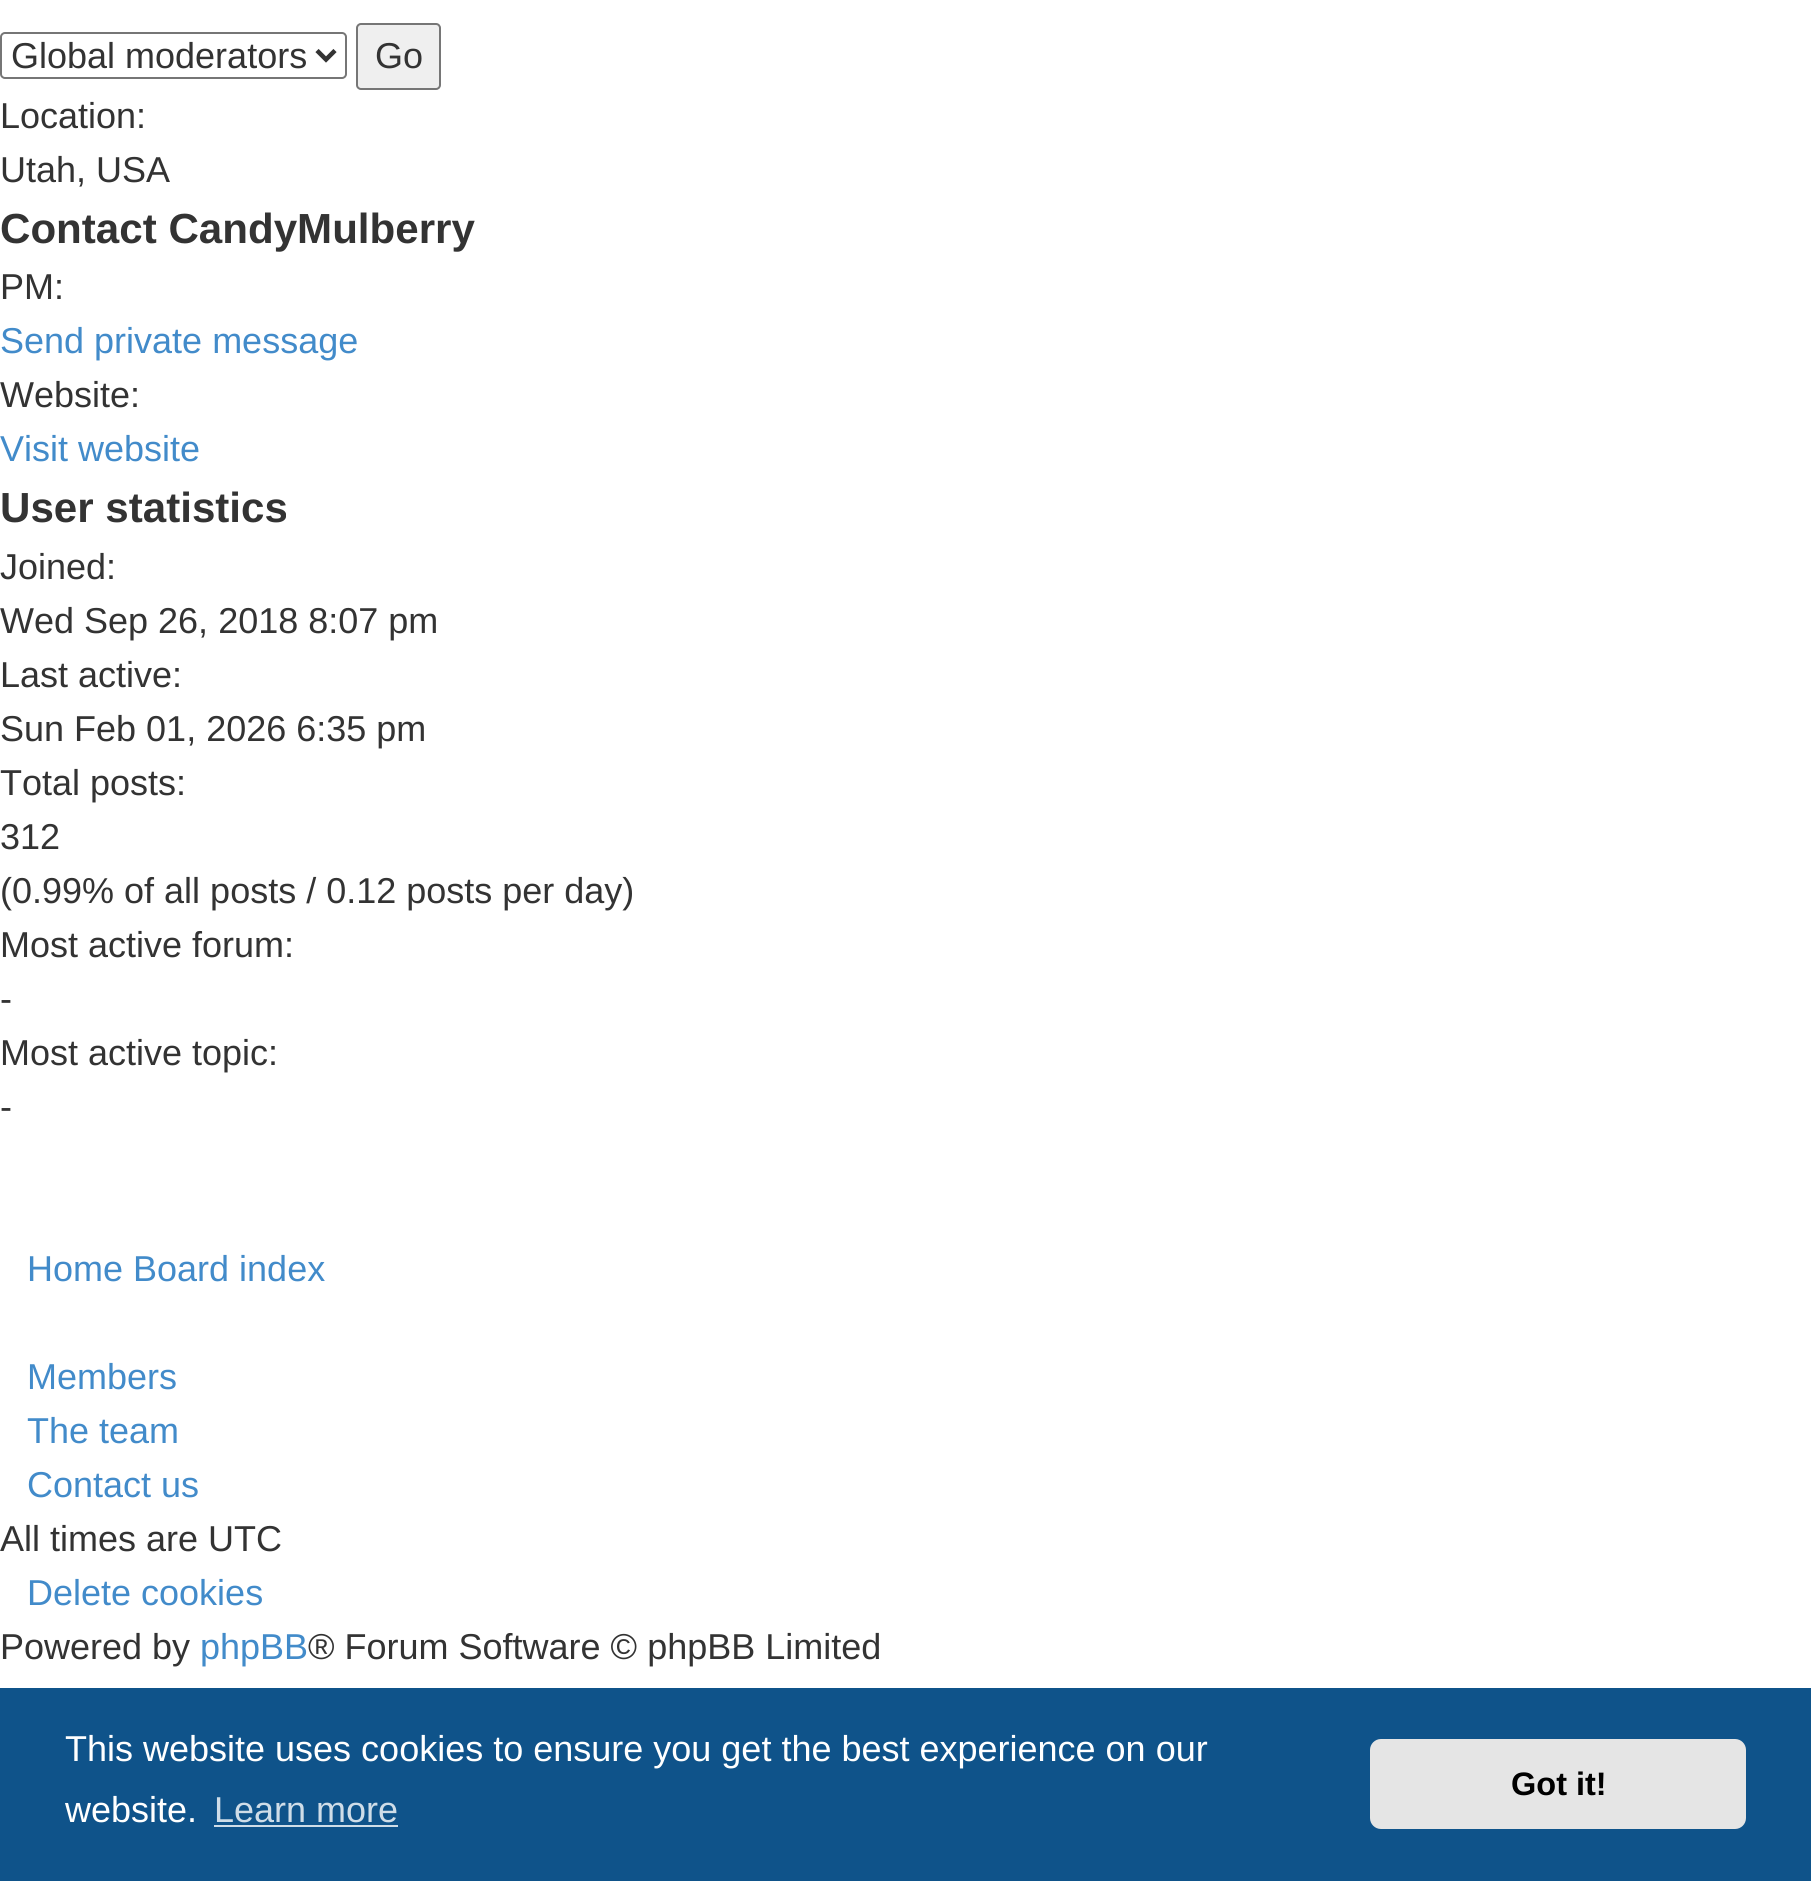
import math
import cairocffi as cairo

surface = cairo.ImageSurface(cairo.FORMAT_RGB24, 1811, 1881)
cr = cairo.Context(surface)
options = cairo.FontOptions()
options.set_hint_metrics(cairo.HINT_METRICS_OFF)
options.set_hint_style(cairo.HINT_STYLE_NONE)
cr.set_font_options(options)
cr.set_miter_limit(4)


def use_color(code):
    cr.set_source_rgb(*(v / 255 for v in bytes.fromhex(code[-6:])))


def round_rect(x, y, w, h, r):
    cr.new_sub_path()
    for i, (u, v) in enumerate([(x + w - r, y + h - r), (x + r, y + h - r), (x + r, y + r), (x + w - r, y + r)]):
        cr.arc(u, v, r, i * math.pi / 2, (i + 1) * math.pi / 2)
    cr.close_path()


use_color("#ffffff")
cr.paint()
round_rect(1, 33, 345, 45, 4)
use_color("#767676")
cr.stroke()
cr.new_path()
cr.move_to(317, 50.5)
cr.line_to(326, 59.5)
cr.line_to(335, 50.5)
use_color("#333333")
cr.set_line_width(4.5)
cr.stroke()
cr.select_font_face("Liberation Sans")
cr.set_font_size(36)
cr.move_to(11, 68)
cr.show_text("Global moderators")
use_color("#efefef")
round_rect(357, 24, 83, 65, 4)
cr.fill_preserve()
use_color("#767676")
cr.set_line_width(2)
cr.stroke()
use_color("#333333")
cr.move_to(375, 68)
cr.show_text("Go")
cr.move_to(0, 128)
cr.show_text("Location:")
cr.move_to(0, 182)
cr.show_text("Utah, USA")
cr.select_font_face("Liberation Sans", cairo.FONT_SLANT_NORMAL, cairo.FONT_WEIGHT_BOLD)
cr.set_font_size(42.1)
cr.move_to(0, 243)
cr.show_text("Contact CandyMulberry")
cr.select_font_face("Liberation Sans")
cr.set_font_size(36)
cr.move_to(0, 299)
cr.show_text("PM:")
use_color("#428bca")
cr.move_to(0, 353)
cr.show_text("Send private message")
use_color("#333333")
cr.move_to(0, 407)
cr.show_text("Website:")
use_color("#428bca")
cr.move_to(0, 461)
cr.show_text("Visit website")
cr.select_font_face("Liberation Sans", cairo.FONT_SLANT_NORMAL, cairo.FONT_WEIGHT_BOLD)
cr.set_font_size(42.1)
use_color("#333333")
cr.move_to(0, 522)
cr.show_text("User statistics")
cr.select_font_face("Liberation Sans")
cr.set_font_size(36)
cr.move_to(0, 579)
cr.show_text("Joined:")
cr.move_to(0, 633)
cr.show_text("Wed Sep 26, 2018 8:07 pm")
cr.move_to(0, 687)
cr.show_text("Last active:")
cr.move_to(0, 741)
cr.show_text("Sun Feb 01, 2026 6:35 pm")
cr.move_to(0, 795)
cr.show_text("Total posts:")
cr.move_to(0, 849)
cr.show_text("312")
cr.move_to(0, 903)
cr.show_text("(0.99% of all posts / 0.12 posts per day)")
cr.move_to(0, 957)
cr.show_text("Most active forum:")
cr.move_to(0, 1011)
cr.show_text("-")
cr.move_to(0, 1065)
cr.show_text("Most active topic:")
cr.move_to(0, 1119)
cr.show_text("-")
use_color("#428bca")
cr.move_to(27, 1281)
cr.show_text("Home Board index")
cr.move_to(27, 1389)
cr.show_text("Members")
cr.move_to(27, 1443)
cr.show_text("The team")
cr.move_to(27, 1497)
cr.show_text("Contact us")
use_color("#333333")
cr.move_to(0, 1551)
cr.show_text("All times are UTC")
use_color("#428bca")
cr.move_to(27, 1605)
cr.show_text("Delete cookies")
use_color("#333333")
cr.move_to(0, 1659)
cr.show_text("Powered by")
use_color("#428bca")
cr.move_to(200, 1659)
cr.show_text("phpBB")
use_color("#333333")
cr.move_to(308, 1659)
cr.show_text("® Forum Software © phpBB Limited")
use_color("#0f538a")
cr.rectangle(0, 1688, 1811, 193)
cr.fill()
use_color("#ffffff")
cr.move_to(65, 1761)
cr.show_text("This website uses cookies to ensure you get the best experience on our")
cr.move_to(65, 1822)
cr.show_text("website.")
use_color("#cfdde8")
cr.move_to(214, 1822)
cr.show_text("Learn more")
cr.rectangle(214, 1825, 184, 2)
cr.fill()
use_color("#e5e5e5")
round_rect(1370, 1739, 376, 90, 11)
cr.fill()
cr.select_font_face("Liberation Sans", cairo.FONT_SLANT_NORMAL, cairo.FONT_WEIGHT_BOLD)
cr.set_font_size(32.5)
use_color("#000000")
cr.move_to(1511, 1795)
cr.show_text("Got it!")
surface.write_to_png("result.png")
